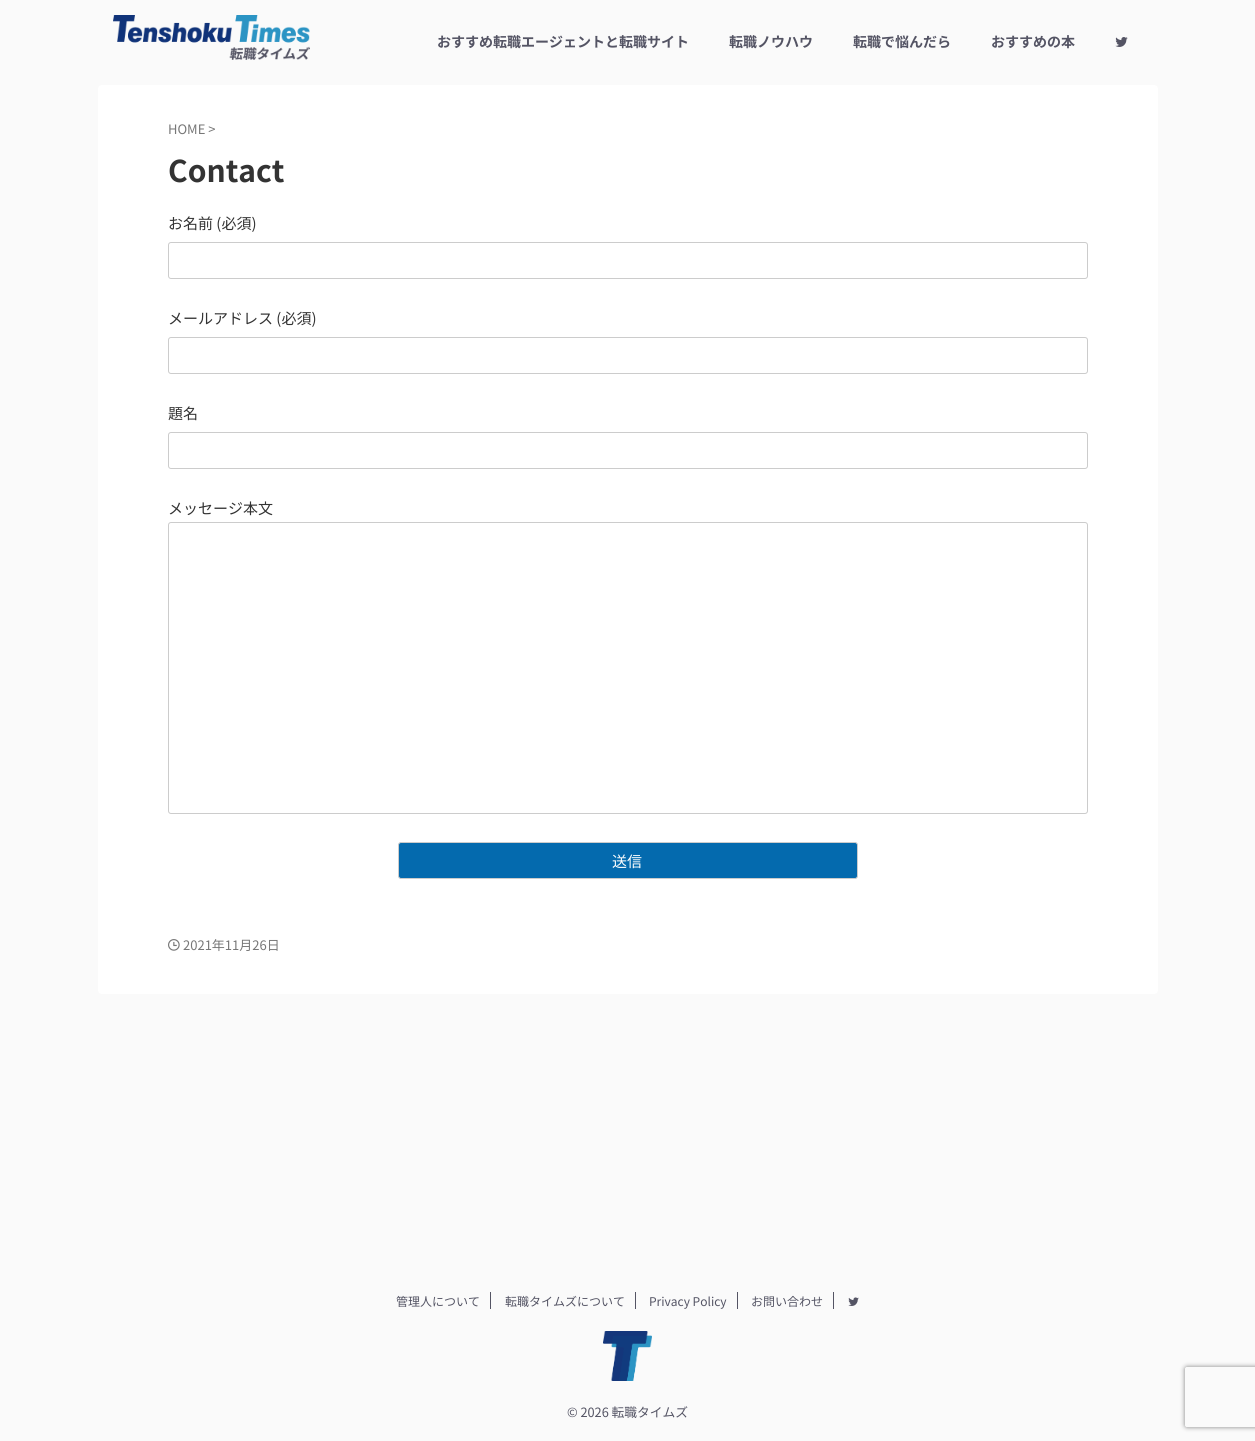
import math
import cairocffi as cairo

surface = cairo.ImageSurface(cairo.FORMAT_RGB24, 1255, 1441)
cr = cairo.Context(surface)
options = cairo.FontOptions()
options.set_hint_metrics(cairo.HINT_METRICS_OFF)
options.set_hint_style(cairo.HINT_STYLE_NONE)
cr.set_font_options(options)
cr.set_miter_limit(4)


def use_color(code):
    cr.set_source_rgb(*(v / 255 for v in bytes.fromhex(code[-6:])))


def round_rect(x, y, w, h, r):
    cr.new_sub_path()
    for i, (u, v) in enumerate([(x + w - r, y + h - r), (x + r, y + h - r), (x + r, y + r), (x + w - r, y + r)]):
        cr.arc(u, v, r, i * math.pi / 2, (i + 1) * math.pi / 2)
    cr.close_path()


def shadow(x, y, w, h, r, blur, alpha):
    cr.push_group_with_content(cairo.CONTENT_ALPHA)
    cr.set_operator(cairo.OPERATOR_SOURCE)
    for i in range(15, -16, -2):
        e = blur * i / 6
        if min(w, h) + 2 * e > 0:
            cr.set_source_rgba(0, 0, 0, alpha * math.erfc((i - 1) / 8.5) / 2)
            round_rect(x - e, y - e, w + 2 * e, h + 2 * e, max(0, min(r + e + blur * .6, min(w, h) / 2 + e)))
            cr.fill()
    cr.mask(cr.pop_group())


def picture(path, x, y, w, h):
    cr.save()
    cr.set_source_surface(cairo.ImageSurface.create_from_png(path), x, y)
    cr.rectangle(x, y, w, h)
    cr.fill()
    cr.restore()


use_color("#fafafa")
cr.paint()
picture("img1.png", 113, 15, 197, 45)
cr.select_font_face("Noto Sans JP", cairo.FONT_SLANT_NORMAL, cairo.FONT_WEIGHT_BOLD)
cr.set_font_size(14)
use_color("#545464")
cr.move_to(437, 47)
cr.show_text("おすすめ転職エージェントと転職サイト")
cr.move_to(729, 47)
cr.show_text("転職ノウハウ")
cr.move_to(853, 47)
cr.show_text("転職で悩んだら")
cr.move_to(991, 47)
cr.show_text("おすすめの本")
picture("img2.png", 1115, 37, 13, 10)
use_color("#ffffff")
round_rect(98, 85, 1060, 909, 4)
cr.fill()
cr.select_font_face("Noto Sans JP")
cr.set_font_size(13)
use_color("#777777")
cr.move_to(168, 134)
cr.show_text("HOME >")
cr.select_font_face("Noto Sans JP", cairo.FONT_SLANT_NORMAL, cairo.FONT_WEIGHT_BOLD)
cr.set_font_size(30)
use_color("#333333")
cr.move_to(168, 182)
cr.show_text("Contact")
cr.select_font_face("Noto Sans JP")
cr.set_font_size(15)
cr.move_to(168, 229)
cr.show_text("お名前 (必須)")
round_rect(168.5, 242.5, 919, 36, 2.5)
use_color("#cccccc")
cr.set_line_width(1)
cr.stroke()
use_color("#333333")
cr.move_to(168, 324)
cr.show_text("メールアドレス (必須)")
round_rect(168.5, 337.5, 919, 36, 2.5)
use_color("#cccccc")
cr.stroke()
use_color("#333333")
cr.move_to(168, 419)
cr.show_text("題名")
round_rect(168.5, 432.5, 919, 36, 2.5)
use_color("#cccccc")
cr.stroke()
use_color("#333333")
cr.move_to(168, 514)
cr.show_text("メッセージ本文")
round_rect(168.5, 522.5, 919, 291, 2.5)
use_color("#cccccc")
cr.stroke()
use_color("#046aae")
round_rect(398.5, 842.5, 459, 36, 2.5)
cr.fill_preserve()
use_color("#cccccc")
cr.stroke()
use_color("#ffffff")
cr.move_to(612, 867)
cr.show_text("送信")
cr.save()
cr.set_fill_rule(cairo.FILL_RULE_EVEN_ODD)
cr.new_path()
cr.move_to(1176, 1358)
cr.line_to(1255, 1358)
cr.line_to(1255, 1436)
cr.line_to(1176, 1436)
cr.close_path()
cr.move_to(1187, 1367)
cr.line_to(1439, 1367)
cr.curve_to(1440, 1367, 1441, 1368, 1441, 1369)
cr.line_to(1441, 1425)
cr.curve_to(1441, 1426, 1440, 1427, 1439, 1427)
cr.line_to(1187, 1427)
cr.curve_to(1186, 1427, 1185, 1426, 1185, 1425)
cr.line_to(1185, 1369)
cr.curve_to(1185, 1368, 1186, 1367, 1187, 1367)
cr.close_path()
cr.clip()
use_color("#808080")
shadow(1185, 1367, 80, 60, 2, 2.5, 1)
cr.restore()
picture("img3.png", 168, 939, 12, 12)
cr.set_font_size(13)
use_color("#777777")
cr.move_to(183, 950)
cr.show_text("2021年11月26日")
cr.set_font_size(12)
use_color("#545464")
cr.move_to(396, 1306)
cr.show_text("管理人について")
cr.rectangle(490, 1292, 1, 17)
cr.fill()
cr.move_to(505, 1306)
cr.show_text("転職タイムズについて")
cr.rectangle(635, 1292, 1, 17)
cr.fill()
cr.move_to(649, 1306)
cr.show_text("Privacy Policy")
cr.rectangle(737, 1292, 1, 17)
cr.fill()
cr.move_to(751, 1306)
cr.show_text("お問い合わせ")
cr.rectangle(833, 1292, 1, 17)
cr.fill()
picture("img4.png", 848, 1297, 11, 9)
picture("img5.png", 603, 1331, 49, 50)
cr.set_font_size(12.75)
cr.move_to(567, 1417)
cr.show_text("© 2026 転職タイムズ")
surface.write_to_png("result.png")
